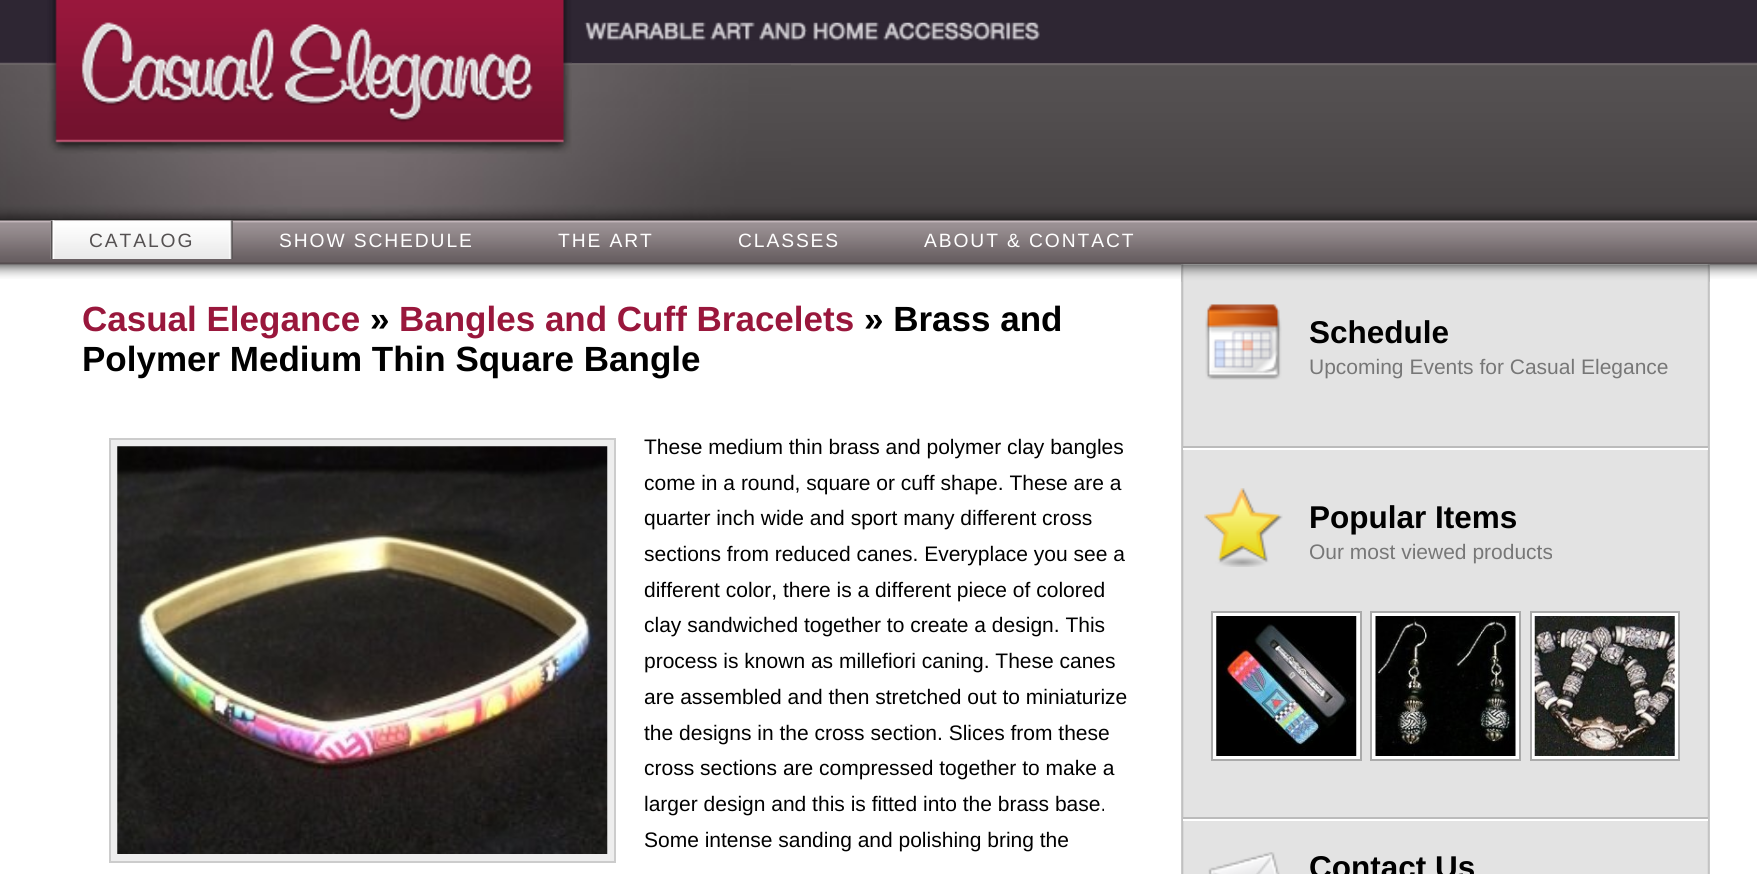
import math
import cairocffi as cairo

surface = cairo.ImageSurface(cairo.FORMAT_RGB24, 1757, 874)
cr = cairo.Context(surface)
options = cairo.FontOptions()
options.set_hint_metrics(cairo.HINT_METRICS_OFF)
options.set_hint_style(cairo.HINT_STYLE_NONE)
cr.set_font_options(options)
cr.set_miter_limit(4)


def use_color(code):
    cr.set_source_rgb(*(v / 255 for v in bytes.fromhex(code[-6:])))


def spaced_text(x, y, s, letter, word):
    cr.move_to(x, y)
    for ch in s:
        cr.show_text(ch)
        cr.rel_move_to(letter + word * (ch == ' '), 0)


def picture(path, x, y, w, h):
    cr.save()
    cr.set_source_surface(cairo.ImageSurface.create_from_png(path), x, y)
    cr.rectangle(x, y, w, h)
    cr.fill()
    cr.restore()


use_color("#ffffff")
cr.paint()
picture("img1.png", 0, 0, 1757, 279)
use_color("#2e2633")
cr.rectangle(47, 62, 1663, 1)
cr.fill()
picture("img4.png", 0, 64, 791, 155)
picture("img2.png", 47, 0, 525, 154)
picture("img3.png", 584, 22, 456, 19)
picture("img5.png", 50, 220, 183, 39)
picture("img6.png", 50, 220, 5, 39)
cr.select_font_face("Liberation Sans")
cr.set_font_size(19.25)
use_color("#555152")
spaced_text(89, 247, "CATALOG", 1.9, 0)
use_color("#ffffff")
spaced_text(279, 247, "SHOW SCHEDULE", 1.9, 0)
spaced_text(558, 247, "THE ART", 1.9, 0)
spaced_text(738, 247, "CLASSES", 1.9, 0)
spaced_text(924, 247, "ABOUT & CONTACT", 1.9, 0)
picture("img7.png", 1181, 264, 529, 610)
picture("img8.png", 1181, 264, 529, 18)
cr.select_font_face("Liberation Sans", cairo.FONT_SLANT_NORMAL, cairo.FONT_WEIGHT_BOLD)
cr.set_font_size(35)
use_color("#99173c")
cr.move_to(82, 331)
cr.show_text("Casual Elegance")
use_color("#000000")
cr.move_to(370, 331)
cr.show_text("»")
use_color("#99173c")
cr.move_to(399, 331)
cr.show_text("Bangles and Cuff Bracelets")
use_color("#000000")
cr.move_to(864, 331)
cr.show_text("» Brass and")
cr.move_to(82, 371)
cr.show_text("Polymer Medium Thin Square Bangle")
use_color("#eeeeee")
cr.rectangle(110, 439, 505, 423)
cr.fill_preserve()
use_color("#cccccc")
cr.stroke()
picture("img9.png", 117, 446, 491, 408)
cr.select_font_face("Liberation Sans")
cr.set_font_size(21)
use_color("#000000")
cr.move_to(644, 454)
cr.show_text("These medium thin brass and polymer clay bangles")
cr.move_to(644, 490)
cr.show_text("come in a round, square or cuff shape. These are a")
cr.move_to(644, 525)
cr.show_text("quarter inch wide and sport many different cross")
cr.move_to(644, 561)
cr.show_text("sections from reduced canes. Everyplace you see a")
cr.move_to(644, 597)
cr.show_text("different color, there is a different piece of colored")
cr.move_to(644, 632)
cr.show_text("clay sandwiched together to create a design. This")
cr.move_to(644, 668)
cr.show_text("process is known as millefiori caning. These canes")
cr.move_to(644, 704)
cr.show_text("are assembled and then stretched out to miniaturize")
cr.move_to(644, 740)
cr.show_text("the designs in the cross section. Slices from these")
cr.move_to(644, 775)
cr.show_text("cross sections are compressed together to make a")
cr.move_to(644, 811)
cr.show_text("larger design and this is fitted into the brass base.")
cr.move_to(644, 847)
cr.show_text("Some intense sanding and polishing bring the")
picture("img10.png", 1205, 304, 77, 76)
use_color("#bbbbbb")
cr.rectangle(1183, 446, 525, 2)
cr.fill()
cr.select_font_face("Liberation Sans", cairo.FONT_SLANT_NORMAL, cairo.FONT_WEIGHT_BOLD)
cr.set_font_size(31.5)
use_color("#000000")
cr.move_to(1309, 343)
cr.show_text("Schedule")
cr.select_font_face("Liberation Sans")
cr.set_font_size(21)
use_color("#777777")
cr.move_to(1309, 374)
cr.show_text("Upcoming Events for Casual Elegance")
picture("img11.png", 1204, 488, 79, 79)
use_color("#ffffff")
cr.rectangle(1183, 448, 525, 2)
cr.fill()
use_color("#bbbbbb")
cr.rectangle(1183, 817, 525, 2)
cr.fill()
cr.select_font_face("Liberation Sans", cairo.FONT_SLANT_NORMAL, cairo.FONT_WEIGHT_BOLD)
cr.set_font_size(31.5)
use_color("#000000")
cr.move_to(1309, 528)
cr.show_text("Popular Items")
cr.select_font_face("Liberation Sans")
cr.set_font_size(21)
use_color("#777777")
cr.move_to(1309, 559)
cr.show_text("Our most viewed products")
use_color("#ffffff")
cr.rectangle(1212, 612, 149, 148)
cr.fill_preserve()
use_color("#aaaaaa")
cr.stroke()
picture("img12.png", 1216, 616, 141, 140)
use_color("#ffffff")
cr.rectangle(1371, 612, 149, 148)
cr.fill_preserve()
use_color("#aaaaaa")
cr.stroke()
picture("img13.png", 1375, 616, 141, 140)
use_color("#ffffff")
cr.rectangle(1531, 612, 148, 148)
cr.fill_preserve()
use_color("#aaaaaa")
cr.stroke()
picture("img14.png", 1534, 616, 141, 140)
use_color("#ffffff")
cr.rectangle(1183, 819, 525, 2)
cr.fill()
picture("img15.png", 1208, 852, 72, 22)
cr.select_font_face("Liberation Sans", cairo.FONT_SLANT_NORMAL, cairo.FONT_WEIGHT_BOLD)
cr.set_font_size(31.5)
use_color("#000000")
cr.move_to(1309, 878)
cr.show_text("Contact Us")
surface.write_to_png("result.png")
